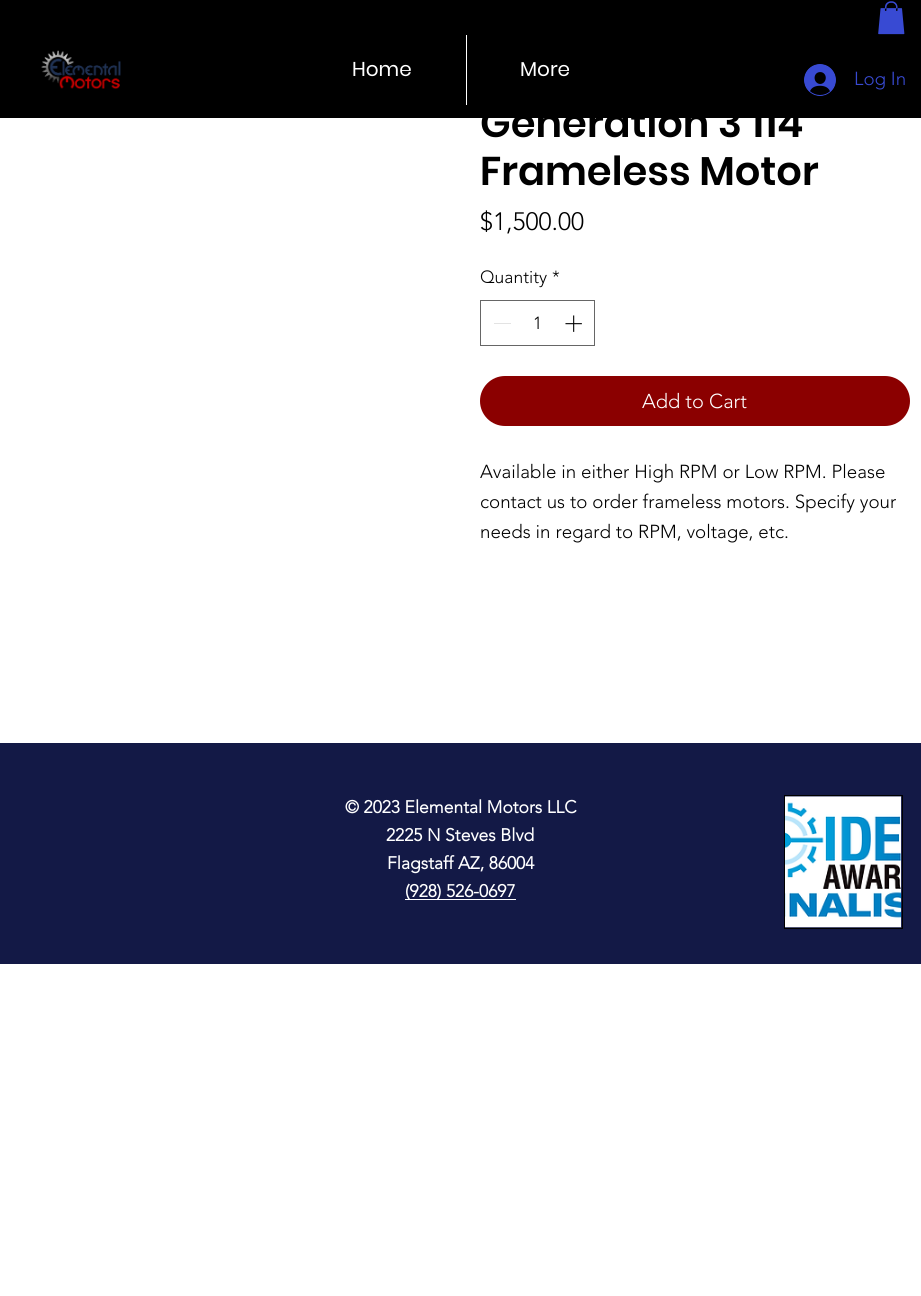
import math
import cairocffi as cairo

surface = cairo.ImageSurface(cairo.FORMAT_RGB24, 921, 1296)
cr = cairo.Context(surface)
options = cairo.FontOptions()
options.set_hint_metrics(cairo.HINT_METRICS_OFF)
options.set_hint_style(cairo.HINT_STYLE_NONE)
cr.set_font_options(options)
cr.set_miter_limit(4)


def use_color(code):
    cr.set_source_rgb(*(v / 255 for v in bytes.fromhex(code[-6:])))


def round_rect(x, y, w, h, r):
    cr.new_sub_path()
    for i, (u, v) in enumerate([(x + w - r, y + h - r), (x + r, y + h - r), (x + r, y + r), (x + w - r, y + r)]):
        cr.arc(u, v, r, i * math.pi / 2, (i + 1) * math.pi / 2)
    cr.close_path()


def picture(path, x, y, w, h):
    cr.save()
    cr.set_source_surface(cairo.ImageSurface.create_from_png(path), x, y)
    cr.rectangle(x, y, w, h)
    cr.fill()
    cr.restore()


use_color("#ffffff")
cr.paint()
use_color("#000000")
cr.rectangle(0, 0, 921, 118)
cr.fill()
picture("img1.png", 878, 1, 27, 34)
picture("img2.png", 41, 50, 80, 39)
cr.select_font_face("Poppins")
cr.set_font_size(20)
use_color("#ffffff")
cr.move_to(352, 76)
cr.show_text("Home")
cr.rectangle(466, 35, 1, 70)
cr.fill()
cr.move_to(520, 76)
cr.show_text("More")
picture("img3.png", 804, 64, 32, 32)
cr.select_font_face("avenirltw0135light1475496 Light")
cr.set_font_size(18.75)
use_color("#384ad3")
cr.move_to(854, 85)
cr.show_text("Log In")
cr.select_font_face("Poppins SemiBold")
cr.set_font_size(40)
use_color("#000000")
cr.move_to(480, 137)
cr.show_text("Generation 3 114")
cr.move_to(480, 185)
cr.show_text("Frameless Motor")
cr.select_font_face("avenirltw0135light1475496 Light")
cr.set_font_size(25)
cr.move_to(480, 230)
cr.show_text("$1,500.00")
cr.set_font_size(17.5)
cr.move_to(480, 283)
cr.show_text("Quantity")
cr.move_to(552, 283)
cr.show_text("*")
cr.rectangle(480.5, 300.5, 114, 45)
use_color("#666666")
cr.set_line_width(1)
cr.stroke()
use_color("#e3e3e3")
cr.rectangle(494, 323, 17, 1)
cr.fill()
use_color("#000000")
cr.move_to(533, 329)
cr.show_text("1")
picture("img4.png", 565, 315, 17, 17)
use_color("#8b0000")
round_rect(480, 376, 430, 50, 25)
cr.fill()
cr.set_font_size(20)
use_color("#ffffff")
cr.move_to(642, 408)
cr.show_text("Add to Cart")
cr.set_font_size(18.75)
use_color("#000000")
cr.move_to(480, 478)
cr.show_text("Available in either High RPM or Low RPM. Please")
cr.move_to(480, 508)
cr.show_text("contact us to order frameless motors. Specify your")
cr.move_to(480, 538)
cr.show_text("needs in regard to RPM, voltage, etc.")
use_color("#131946")
cr.rectangle(0, 743, 921, 221)
cr.fill()
cr.select_font_face("avenirltw0135light1475496", cairo.FONT_SLANT_NORMAL, cairo.FONT_WEIGHT_BOLD)
cr.set_font_size(17.5)
use_color("#ffffff")
cr.move_to(345, 813)
cr.show_text("© 2023 Elemental Motors LLC")
cr.move_to(386, 841)
cr.show_text("2225 N Steves Blvd")
cr.move_to(387, 869)
cr.show_text("Flagstaff AZ, 86004")
cr.rectangle(405, 899, 111, 1)
cr.fill()
cr.move_to(405, 897)
cr.show_text("(928) 526-0697")
cr.rectangle(784.5, 795.5, 118, 133)
use_color("#000000")
cr.stroke()
picture("img5.png", 785, 796, 117, 132)
surface.write_to_png("result.png")
